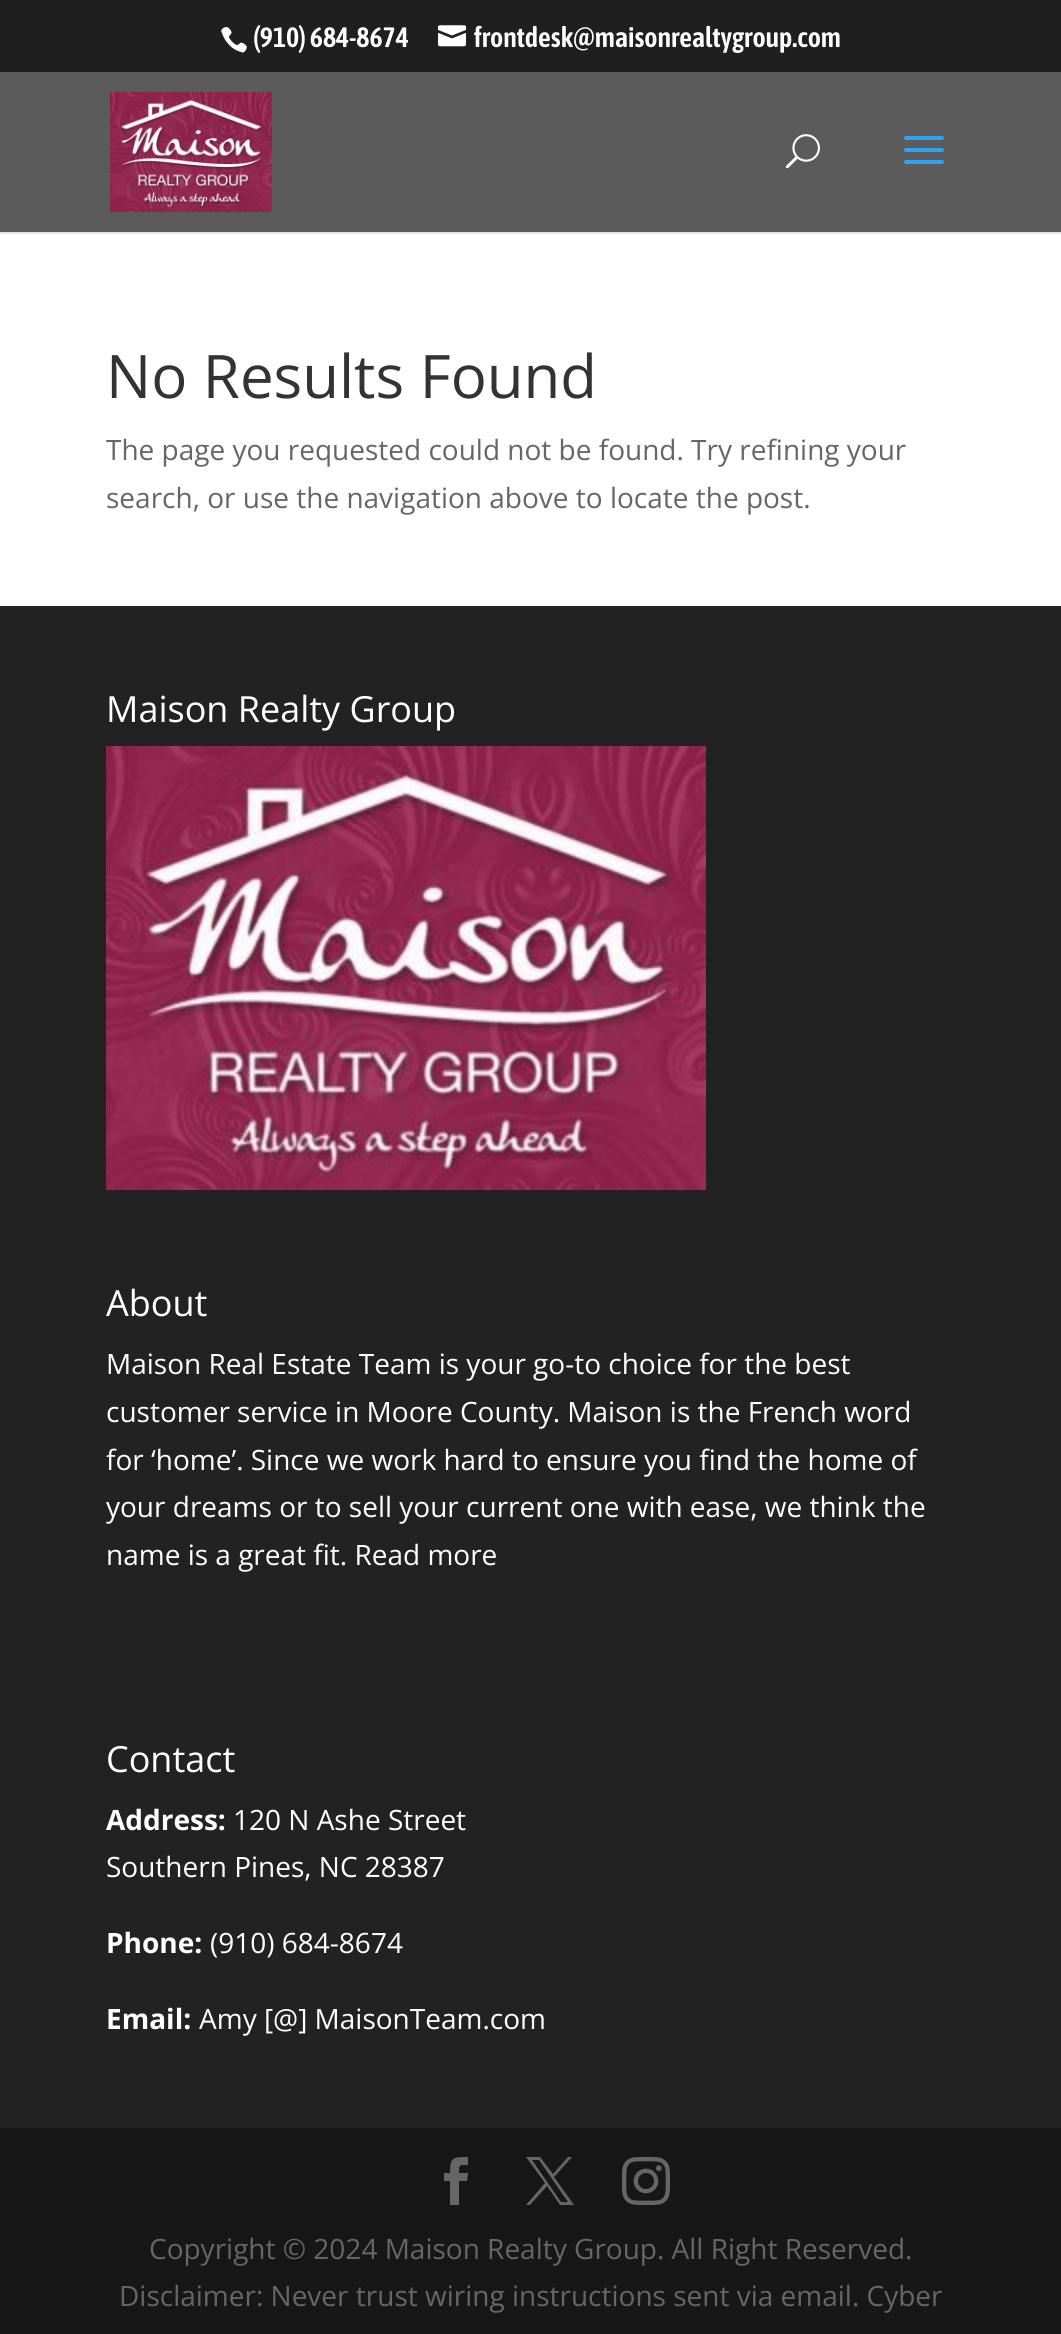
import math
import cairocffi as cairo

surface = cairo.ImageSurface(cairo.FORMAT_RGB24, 1061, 2334)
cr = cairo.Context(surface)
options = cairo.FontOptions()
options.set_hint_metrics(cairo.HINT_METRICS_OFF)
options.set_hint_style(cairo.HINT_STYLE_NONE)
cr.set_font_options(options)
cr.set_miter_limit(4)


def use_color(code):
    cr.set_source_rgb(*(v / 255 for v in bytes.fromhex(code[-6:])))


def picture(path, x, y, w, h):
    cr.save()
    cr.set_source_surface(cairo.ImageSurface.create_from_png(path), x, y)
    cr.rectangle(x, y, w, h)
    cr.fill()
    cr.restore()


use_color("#ffffff")
cr.paint()
use_color("#1f1f1f")
cr.rectangle(0, 0, 1061, 72)
cr.fill()
picture("img1.png", 221, 26, 26, 27)
cr.select_font_face("Asap Condensed SemiBold")
cr.set_font_size(28)
use_color("#ffffff")
cr.move_to(253, 47)
cr.show_text("(910) 684-8674")
picture("img2.png", 438, 25, 28, 22)
cr.move_to(474, 47)
cr.show_text("frontdesk@maisonrealtygroup.com")
use_color("#e6e6e6")
cr.rectangle(0, 232, 1061, 2)
cr.fill()
use_color("#5b5b5b")
cr.rectangle(0, 72, 1061, 160)
cr.fill()
picture("img3.png", 110, 92, 162, 120)
picture("img4.png", 785, 134, 35, 35)
picture("img5.png", 904, 136, 40, 28)
cr.select_font_face("Open Sans")
cr.set_font_size(60)
use_color("#333333")
cr.move_to(106, 398)
cr.show_text("No Results Found")
cr.set_font_size(28)
use_color("#666666")
cr.move_to(106, 460)
cr.show_text("The page you requested could not be found. Try refining your")
cr.move_to(106, 508)
cr.show_text("search, or use the navigation above to locate the post.")
use_color("#222222")
cr.rectangle(0, 606, 1061, 1522)
cr.fill()
cr.set_font_size(36)
use_color("#ffffff")
cr.move_to(106, 722)
cr.show_text("Maison Realty Group")
picture("img6.png", 106, 746, 600, 444)
cr.move_to(106, 1316)
cr.show_text("About")
cr.set_font_size(28)
cr.move_to(106, 1374)
cr.show_text("Maison Real Estate Team is your go-to choice for the best")
cr.move_to(106, 1422)
cr.show_text("customer service in Moore County. Maison is the French word")
cr.move_to(106, 1470)
cr.show_text("for ‘home’. Since we work hard to ensure you find the home of")
cr.move_to(106, 1517)
cr.show_text("your dreams or to sell your current one with ease, we think the")
cr.move_to(106, 1565)
cr.show_text("name is a great fit. Read more")
cr.set_font_size(36)
cr.move_to(106, 1772)
cr.show_text("Contact")
cr.select_font_face("Open Sans", cairo.FONT_SLANT_NORMAL, cairo.FONT_WEIGHT_BOLD)
cr.set_font_size(28)
cr.move_to(106, 1830)
cr.show_text("Address:")
cr.select_font_face("Open Sans")
cr.move_to(233, 1830)
cr.show_text("120 N Ashe Street")
cr.move_to(106, 1877)
cr.show_text("Southern Pines, NC 28387")
cr.select_font_face("Open Sans", cairo.FONT_SLANT_NORMAL, cairo.FONT_WEIGHT_BOLD)
cr.move_to(106, 1953)
cr.show_text("Phone:")
cr.select_font_face("Open Sans")
cr.move_to(210, 1953)
cr.show_text("(910) 684-8674")
cr.select_font_face("Open Sans", cairo.FONT_SLANT_NORMAL, cairo.FONT_WEIGHT_BOLD)
cr.move_to(106, 2029)
cr.show_text("Email:")
cr.select_font_face("Open Sans")
cr.move_to(199, 2029)
cr.show_text("Amy [@] MaisonTeam.com")
use_color("#171717")
cr.rectangle(0, 2128, 1061, 206)
cr.fill()
use_color("#666666")
cr.new_path()
cr.move_to(450, 2205)
cr.line_to(459, 2205)
cr.line_to(459, 2181)
cr.line_to(467, 2181)
cr.line_to(468, 2173)
cr.line_to(459, 2173)
cr.curve_to(459, 2164, 459, 2165, 468, 2165)
cr.line_to(468, 2157)
cr.curve_to(453, 2157, 450, 2157, 450, 2173)
cr.line_to(444, 2173)
cr.line_to(444, 2181)
cr.line_to(450, 2181)
cr.close_path()
cr.fill()
cr.new_path()
cr.move_to(526, 2157)
cr.line_to(545, 2183)
cr.line_to(526, 2205)
cr.line_to(530, 2205)
cr.line_to(547, 2186)
cr.line_to(560, 2205)
cr.line_to(574, 2205)
cr.line_to(554, 2177)
cr.line_to(572, 2157)
cr.line_to(568, 2157)
cr.line_to(553, 2174)
cr.line_to(540, 2157)
cr.close_path()
cr.move_to(532, 2160)
cr.line_to(539, 2160)
cr.line_to(568, 2202)
cr.line_to(561, 2202)
cr.close_path()
cr.fill()
picture("img7.png", 622, 2157, 48, 48)
cr.move_to(149, 2259)
cr.show_text("Copyright © 2024 Maison Realty Group. All Right Reserved.")
cr.move_to(119, 2306)
cr.show_text("Disclaimer: Never trust wiring instructions sent via email. Cyber")
surface.write_to_png("result.png")
